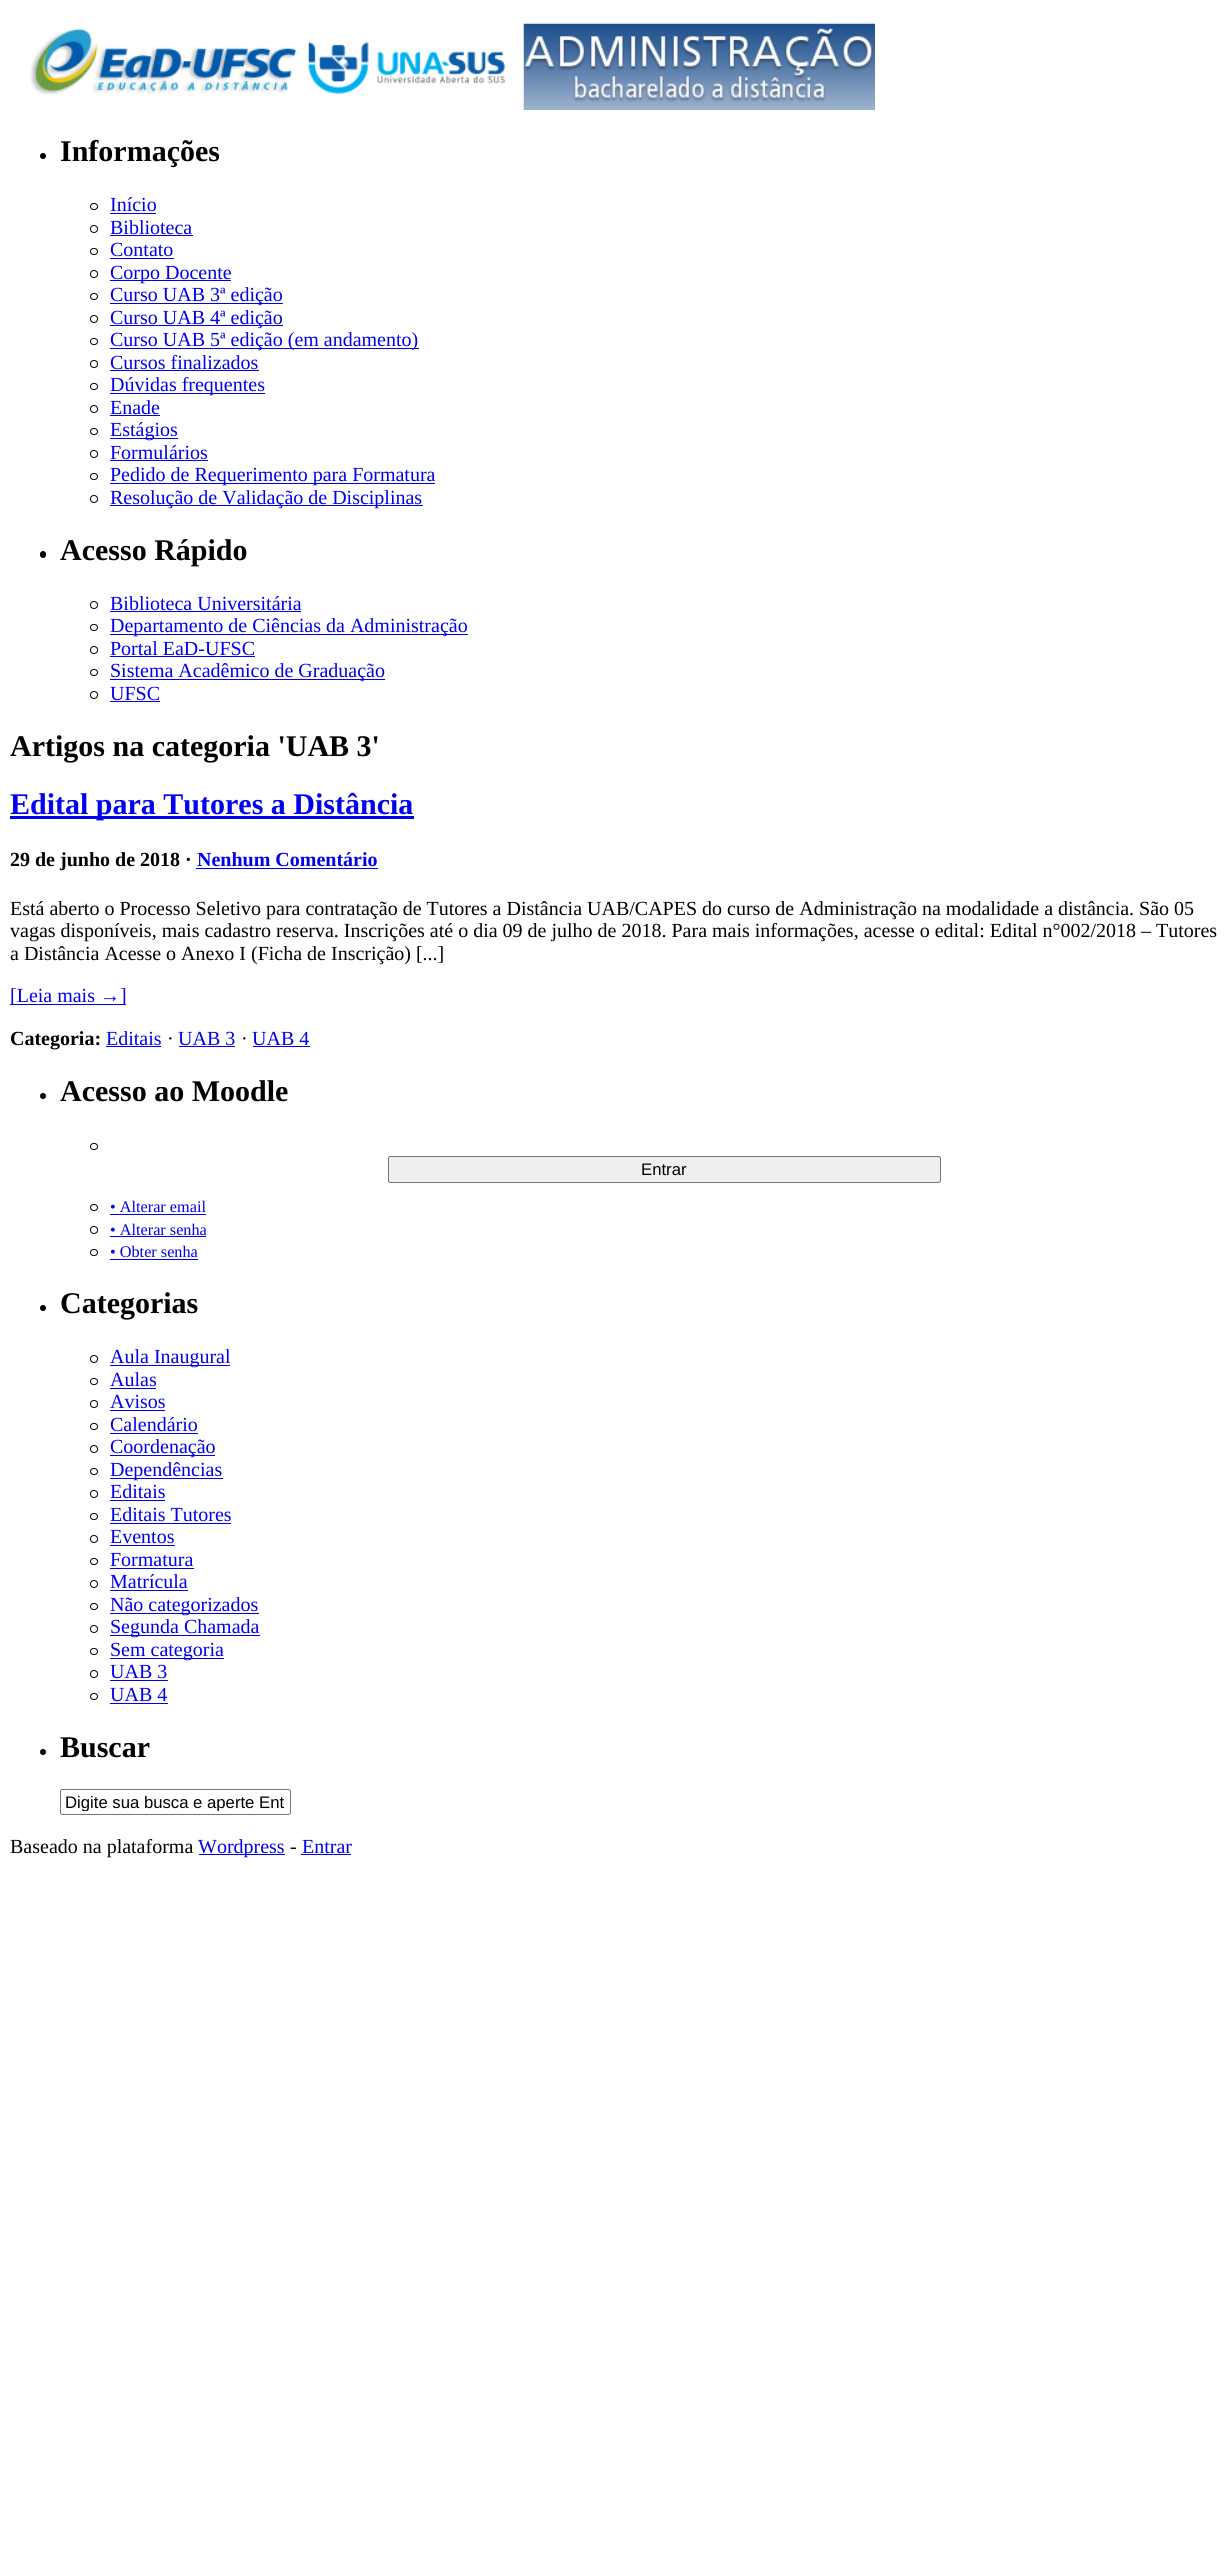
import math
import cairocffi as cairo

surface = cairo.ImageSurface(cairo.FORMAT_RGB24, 1227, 2551)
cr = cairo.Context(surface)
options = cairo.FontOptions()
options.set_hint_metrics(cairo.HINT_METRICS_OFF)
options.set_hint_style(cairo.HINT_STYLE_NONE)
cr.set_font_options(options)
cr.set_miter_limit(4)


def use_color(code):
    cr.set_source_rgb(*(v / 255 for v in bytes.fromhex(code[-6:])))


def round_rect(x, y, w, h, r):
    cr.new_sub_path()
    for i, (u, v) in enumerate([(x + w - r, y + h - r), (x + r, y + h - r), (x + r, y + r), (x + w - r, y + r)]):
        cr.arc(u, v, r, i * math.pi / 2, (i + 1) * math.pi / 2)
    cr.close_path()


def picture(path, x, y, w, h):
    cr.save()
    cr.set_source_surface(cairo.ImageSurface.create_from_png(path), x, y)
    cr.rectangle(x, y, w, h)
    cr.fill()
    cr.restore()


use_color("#ffffff")
cr.paint()
picture("img1.png", 30, 28, 476, 67)
picture("img2.png", 523, 23, 352, 87)
use_color("#000000")
cr.arc(43, 156, 3, 0, 2 * math.pi)
cr.fill()
cr.select_font_face("Liberation Serif", cairo.FONT_SLANT_NORMAL, cairo.FONT_WEIGHT_BOLD)
cr.set_font_size(30)
cr.move_to(60, 161)
cr.show_text("Informações")
round_rect(90.5, 203.5, 7, 6, 3)
cr.set_line_width(1)
cr.stroke()
cr.select_font_face("Liberation Serif")
cr.set_font_size(20)
use_color("#0000ee")
cr.move_to(110, 211)
cr.show_text("Início")
cr.rectangle(110, 213, 46, 1)
cr.fill()
cr.arc(94, 229, 3.5, 0, 2 * math.pi)
use_color("#000000")
cr.stroke()
use_color("#0000ee")
cr.move_to(110, 234)
cr.show_text("Biblioteca")
cr.rectangle(110, 235, 83, 1)
cr.fill()
round_rect(90.5, 248.5, 7, 6, 3)
use_color("#000000")
cr.stroke()
use_color("#0000ee")
cr.move_to(110, 256)
cr.show_text("Contato")
cr.rectangle(110, 258, 64, 1)
cr.fill()
cr.arc(94, 274, 3.5, 0, 2 * math.pi)
use_color("#000000")
cr.stroke()
use_color("#0000ee")
cr.rectangle(110, 280, 121, 1)
cr.fill()
cr.move_to(110, 279)
cr.show_text("Corpo Docente")
round_rect(90.5, 293.5, 7, 6, 3)
use_color("#000000")
cr.stroke()
use_color("#0000ee")
cr.rectangle(110, 303, 173, 1)
cr.fill()
cr.move_to(110, 301)
cr.show_text("Curso UAB 3ª edição")
cr.new_path()
cr.arc(94, 319, 3.5, 0, 2 * math.pi)
use_color("#000000")
cr.stroke()
use_color("#0000ee")
cr.rectangle(110, 325, 173, 1)
cr.fill()
cr.move_to(110, 324)
cr.show_text("Curso UAB 4ª edição")
round_rect(90.5, 338.5, 7, 6, 3)
use_color("#000000")
cr.stroke()
use_color("#0000ee")
cr.rectangle(110, 348, 309, 1)
cr.fill()
cr.move_to(110, 346)
cr.show_text("Curso UAB 5ª edição (em andamento)")
cr.new_path()
cr.arc(94, 364, 3.5, 0, 2 * math.pi)
use_color("#000000")
cr.stroke()
use_color("#0000ee")
cr.move_to(110, 369)
cr.show_text("Cursos finalizados")
cr.rectangle(110, 370, 149, 1)
cr.fill()
round_rect(90.5, 383.5, 7, 6, 3)
use_color("#000000")
cr.stroke()
use_color("#0000ee")
cr.rectangle(110, 393, 155, 1)
cr.fill()
cr.move_to(110, 391)
cr.show_text("Dúvidas frequentes")
cr.new_path()
cr.arc(94, 409, 3.5, 0, 2 * math.pi)
use_color("#000000")
cr.stroke()
use_color("#0000ee")
cr.move_to(110, 414)
cr.show_text("Enade")
cr.rectangle(110, 415, 50, 1)
cr.fill()
round_rect(90.5, 428.5, 7, 6, 3)
use_color("#000000")
cr.stroke()
use_color("#0000ee")
cr.rectangle(110, 438, 68, 1)
cr.fill()
cr.move_to(110, 436)
cr.show_text("Estágios")
cr.new_path()
cr.arc(94, 454, 3.5, 0, 2 * math.pi)
use_color("#000000")
cr.stroke()
use_color("#0000ee")
cr.move_to(110, 459)
cr.show_text("Formulários")
cr.rectangle(110, 460, 98, 1)
cr.fill()
round_rect(90.5, 473.5, 7, 6, 3)
use_color("#000000")
cr.stroke()
use_color("#0000ee")
cr.rectangle(110, 483, 325, 1)
cr.fill()
cr.move_to(110, 481)
cr.show_text("Pedido de Requerimento para Formatura")
cr.new_path()
cr.arc(94, 499, 3.5, 0, 2 * math.pi)
use_color("#000000")
cr.stroke()
use_color("#0000ee")
cr.rectangle(110, 505, 313, 1)
cr.fill()
cr.move_to(110, 504)
cr.show_text("Resolução de Validação de Disciplinas")
use_color("#000000")
round_rect(40, 551, 6, 7, 3)
cr.fill()
cr.select_font_face("Liberation Serif", cairo.FONT_SLANT_NORMAL, cairo.FONT_WEIGHT_BOLD)
cr.set_font_size(30)
cr.move_to(60, 560)
cr.show_text("Acesso Rápido")
cr.new_path()
cr.arc(94, 605, 3.5, 0, 2 * math.pi)
cr.stroke()
cr.select_font_face("Liberation Serif")
cr.set_font_size(20)
use_color("#0000ee")
cr.move_to(110, 610)
cr.show_text("Biblioteca Universitária")
cr.rectangle(110, 611, 191, 1)
cr.fill()
round_rect(90.5, 624.5, 7, 6, 3)
use_color("#000000")
cr.stroke()
use_color("#0000ee")
cr.rectangle(110, 634, 358, 1)
cr.fill()
cr.move_to(110, 632)
cr.show_text("Departamento de Ciências da Administração")
cr.new_path()
cr.arc(94, 650, 3.5, 0, 2 * math.pi)
use_color("#000000")
cr.stroke()
use_color("#0000ee")
cr.move_to(110, 655)
cr.show_text("Portal EaD-UFSC")
cr.rectangle(110, 656, 145, 1)
cr.fill()
round_rect(90.5, 669.5, 7, 6, 3)
use_color("#000000")
cr.stroke()
use_color("#0000ee")
cr.rectangle(110, 679, 275, 1)
cr.fill()
cr.move_to(110, 677)
cr.show_text("Sistema Acadêmico de Graduação")
cr.new_path()
cr.arc(94, 695, 3.5, 0, 2 * math.pi)
use_color("#000000")
cr.stroke()
use_color("#0000ee")
cr.move_to(110, 700)
cr.show_text("UFSC")
cr.rectangle(110, 701, 50, 1)
cr.fill()
cr.select_font_face("Liberation Serif", cairo.FONT_SLANT_NORMAL, cairo.FONT_WEIGHT_BOLD)
cr.set_font_size(30)
use_color("#000000")
cr.move_to(10, 756)
cr.show_text("Artigos na categoria 'UAB 3'")
use_color("#0000ee")
cr.rectangle(10, 816, 404, 3)
cr.fill()
cr.move_to(10, 814)
cr.show_text("Edital para Tutores a Distância")
cr.set_font_size(20)
use_color("#000000")
cr.move_to(10, 866)
cr.show_text("29 de junho de 2018 ·")
use_color("#0000ee")
cr.move_to(197, 866)
cr.show_text("Nenhum Comentário")
cr.rectangle(196, 868, 182, 1)
cr.fill()
cr.select_font_face("Liberation Serif")
use_color("#000000")
cr.move_to(10, 915)
cr.show_text("Está aberto o Processo Seletivo para contratação de Tutores a Distância UAB/CAPES do curso de Administração na modalidade a distância. São 05")
cr.move_to(10, 937)
cr.show_text("vagas disponíveis, mais cadastro reserva. Inscrições até o dia 09 de julho de 2018. Para mais informações, acesse o edital: Edital n°002/2018 – Tutores")
cr.move_to(10, 960)
cr.show_text("a Distância Acesse o Anexo I (Ficha de Inscrição) [...]")
use_color("#0000ee")
cr.rectangle(10, 1004, 116, 1)
cr.fill()
cr.move_to(10, 1002)
cr.show_text("[Leia mais →]")
cr.select_font_face("Liberation Serif", cairo.FONT_SLANT_NORMAL, cairo.FONT_WEIGHT_BOLD)
use_color("#000000")
cr.move_to(10, 1045)
cr.show_text("Categoria:")
cr.select_font_face("Liberation Serif")
use_color("#0000ee")
cr.move_to(106, 1045)
cr.show_text("Editais")
cr.rectangle(106, 1046, 55, 1)
cr.fill()
use_color("#000000")
cr.move_to(167, 1045)
cr.show_text("·")
use_color("#0000ee")
cr.move_to(178, 1045)
cr.show_text("UAB 3")
cr.rectangle(179, 1046, 56, 1)
cr.fill()
use_color("#000000")
cr.move_to(241, 1045)
cr.show_text("·")
use_color("#0000ee")
cr.move_to(252, 1045)
cr.show_text("UAB 4")
cr.rectangle(253, 1046, 57, 1)
cr.fill()
use_color("#000000")
cr.arc(43, 1096, 3, 0, 2 * math.pi)
cr.fill()
cr.select_font_face("Liberation Serif", cairo.FONT_SLANT_NORMAL, cairo.FONT_WEIGHT_BOLD)
cr.set_font_size(30)
cr.move_to(60, 1101)
cr.show_text("Acesso ao Moodle")
round_rect(90.5, 1143.5, 7, 6, 3)
cr.stroke()
use_color("#efefef")
round_rect(388.5, 1156.5, 552, 26, 2)
cr.fill_preserve()
use_color("#767676")
cr.stroke()
cr.select_font_face("Liberation Sans")
cr.set_font_size(16.7)
use_color("#000000")
cr.move_to(641, 1175)
cr.show_text("Entrar")
round_rect(90.5, 1204.5, 7, 6, 3)
cr.stroke()
cr.select_font_face("Liberation Serif")
cr.set_font_size(16.25)
use_color("#0000ee")
cr.move_to(110, 1212)
cr.show_text("• Alterar email")
cr.rectangle(110, 1214, 96, 1)
cr.fill()
cr.arc(94, 1230, 3.5, 0, 2 * math.pi)
use_color("#000000")
cr.stroke()
use_color("#0000ee")
cr.move_to(110, 1235)
cr.show_text("• Alterar senha")
cr.rectangle(110, 1236, 96, 1)
cr.fill()
round_rect(90.5, 1249.5, 7, 6, 3)
use_color("#000000")
cr.stroke()
use_color("#0000ee")
cr.move_to(110, 1257)
cr.show_text("• Obter senha")
cr.rectangle(110, 1259, 88, 1)
cr.fill()
use_color("#000000")
cr.arc(43, 1308, 3, 0, 2 * math.pi)
cr.fill()
cr.select_font_face("Liberation Serif", cairo.FONT_SLANT_NORMAL, cairo.FONT_WEIGHT_BOLD)
cr.set_font_size(30)
cr.move_to(60, 1313)
cr.show_text("Categorias")
cr.new_path()
cr.arc(94, 1359, 3.5, 0, 2 * math.pi)
cr.stroke()
use_color("#0000ee")
cr.rectangle(110, 1365, 120, 1)
cr.fill()
cr.select_font_face("Liberation Serif")
cr.set_font_size(20)
cr.move_to(110, 1363)
cr.show_text("Aula Inaugural")
round_rect(90.5, 1378.5, 7, 6, 3)
use_color("#000000")
cr.stroke()
use_color("#0000ee")
cr.move_to(110, 1386)
cr.show_text("Aulas")
cr.rectangle(110, 1388, 46, 1)
cr.fill()
cr.arc(94, 1404, 3.5, 0, 2 * math.pi)
use_color("#000000")
cr.stroke()
use_color("#0000ee")
cr.move_to(110, 1408)
cr.show_text("Avisos")
cr.rectangle(110, 1410, 55, 1)
cr.fill()
round_rect(90.5, 1423.5, 7, 6, 3)
use_color("#000000")
cr.stroke()
use_color("#0000ee")
cr.move_to(110, 1431)
cr.show_text("Calendário")
cr.rectangle(110, 1433, 88, 1)
cr.fill()
cr.arc(94, 1449, 3.5, 0, 2 * math.pi)
use_color("#000000")
cr.stroke()
use_color("#0000ee")
cr.rectangle(110, 1455, 105, 1)
cr.fill()
cr.move_to(110, 1453)
cr.show_text("Coordenação")
round_rect(90.5, 1468.5, 7, 6, 3)
use_color("#000000")
cr.stroke()
use_color("#0000ee")
cr.rectangle(110, 1478, 113, 1)
cr.fill()
cr.move_to(110, 1476)
cr.show_text("Dependências")
cr.new_path()
cr.arc(94, 1494, 3.5, 0, 2 * math.pi)
use_color("#000000")
cr.stroke()
use_color("#0000ee")
cr.move_to(110, 1498)
cr.show_text("Editais")
cr.rectangle(110, 1500, 55, 1)
cr.fill()
round_rect(90.5, 1513.5, 7, 6, 3)
use_color("#000000")
cr.stroke()
use_color("#0000ee")
cr.move_to(110, 1521)
cr.show_text("Editais Tutores")
cr.rectangle(110, 1523, 121, 1)
cr.fill()
cr.arc(94, 1539, 3.5, 0, 2 * math.pi)
use_color("#000000")
cr.stroke()
use_color("#0000ee")
cr.move_to(110, 1543)
cr.show_text("Eventos")
cr.rectangle(110, 1545, 65, 1)
cr.fill()
round_rect(90.5, 1558.5, 7, 6, 3)
use_color("#000000")
cr.stroke()
use_color("#0000ee")
cr.move_to(110, 1566)
cr.show_text("Formatura")
cr.rectangle(110, 1568, 84, 1)
cr.fill()
cr.arc(94, 1584, 3.5, 0, 2 * math.pi)
use_color("#000000")
cr.stroke()
use_color("#0000ee")
cr.move_to(110, 1588)
cr.show_text("Matrícula")
cr.rectangle(110, 1590, 78, 1)
cr.fill()
round_rect(90.5, 1603.5, 7, 6, 3)
use_color("#000000")
cr.stroke()
use_color("#0000ee")
cr.rectangle(110, 1613, 149, 1)
cr.fill()
cr.move_to(110, 1611)
cr.show_text("Não categorizados")
cr.new_path()
cr.arc(94, 1629, 3.5, 0, 2 * math.pi)
use_color("#000000")
cr.stroke()
use_color("#0000ee")
cr.rectangle(110, 1635, 150, 1)
cr.fill()
cr.move_to(110, 1633)
cr.show_text("Segunda Chamada")
round_rect(90.5, 1648.5, 7, 6, 3)
use_color("#000000")
cr.stroke()
use_color("#0000ee")
cr.rectangle(110, 1658, 114, 1)
cr.fill()
cr.move_to(110, 1656)
cr.show_text("Sem categoria")
cr.new_path()
cr.arc(94, 1674, 3.5, 0, 2 * math.pi)
use_color("#000000")
cr.stroke()
use_color("#0000ee")
cr.move_to(110, 1678)
cr.show_text("UAB 3")
cr.rectangle(110, 1680, 58, 1)
cr.fill()
round_rect(90.5, 1693.5, 7, 6, 3)
use_color("#000000")
cr.stroke()
use_color("#0000ee")
cr.move_to(110, 1701)
cr.show_text("UAB 4")
cr.rectangle(110, 1703, 58, 1)
cr.fill()
use_color("#000000")
cr.arc(43, 1752, 3, 0, 2 * math.pi)
cr.fill()
cr.select_font_face("Liberation Serif", cairo.FONT_SLANT_NORMAL, cairo.FONT_WEIGHT_BOLD)
cr.set_font_size(30)
cr.move_to(60, 1757)
cr.show_text("Buscar")
round_rect(60.5, 1789.5, 230, 25, 2)
use_color("#767676")
cr.stroke()
cr.save()
cr.rectangle(65, 1793, 221, 18)
cr.clip()
cr.select_font_face("Liberation Sans")
cr.set_font_size(16.7)
use_color("#000000")
cr.move_to(65, 1808)
cr.show_text("Digite sua busca e aperte Ent")
cr.restore()
cr.select_font_face("Liberation Serif")
cr.set_font_size(20)
use_color("#000000")
cr.move_to(10, 1853)
cr.show_text("Baseado na plataforma")
use_color("#0000ee")
cr.rectangle(199, 1854, 86, 1)
cr.fill()
cr.move_to(198, 1853)
cr.show_text("Wordpress")
use_color("#000000")
cr.move_to(290, 1853)
cr.show_text("-")
use_color("#0000ee")
cr.move_to(302, 1853)
cr.show_text("Entrar")
cr.rectangle(301, 1854, 50, 1)
cr.fill()
surface.write_to_png("result.png")
